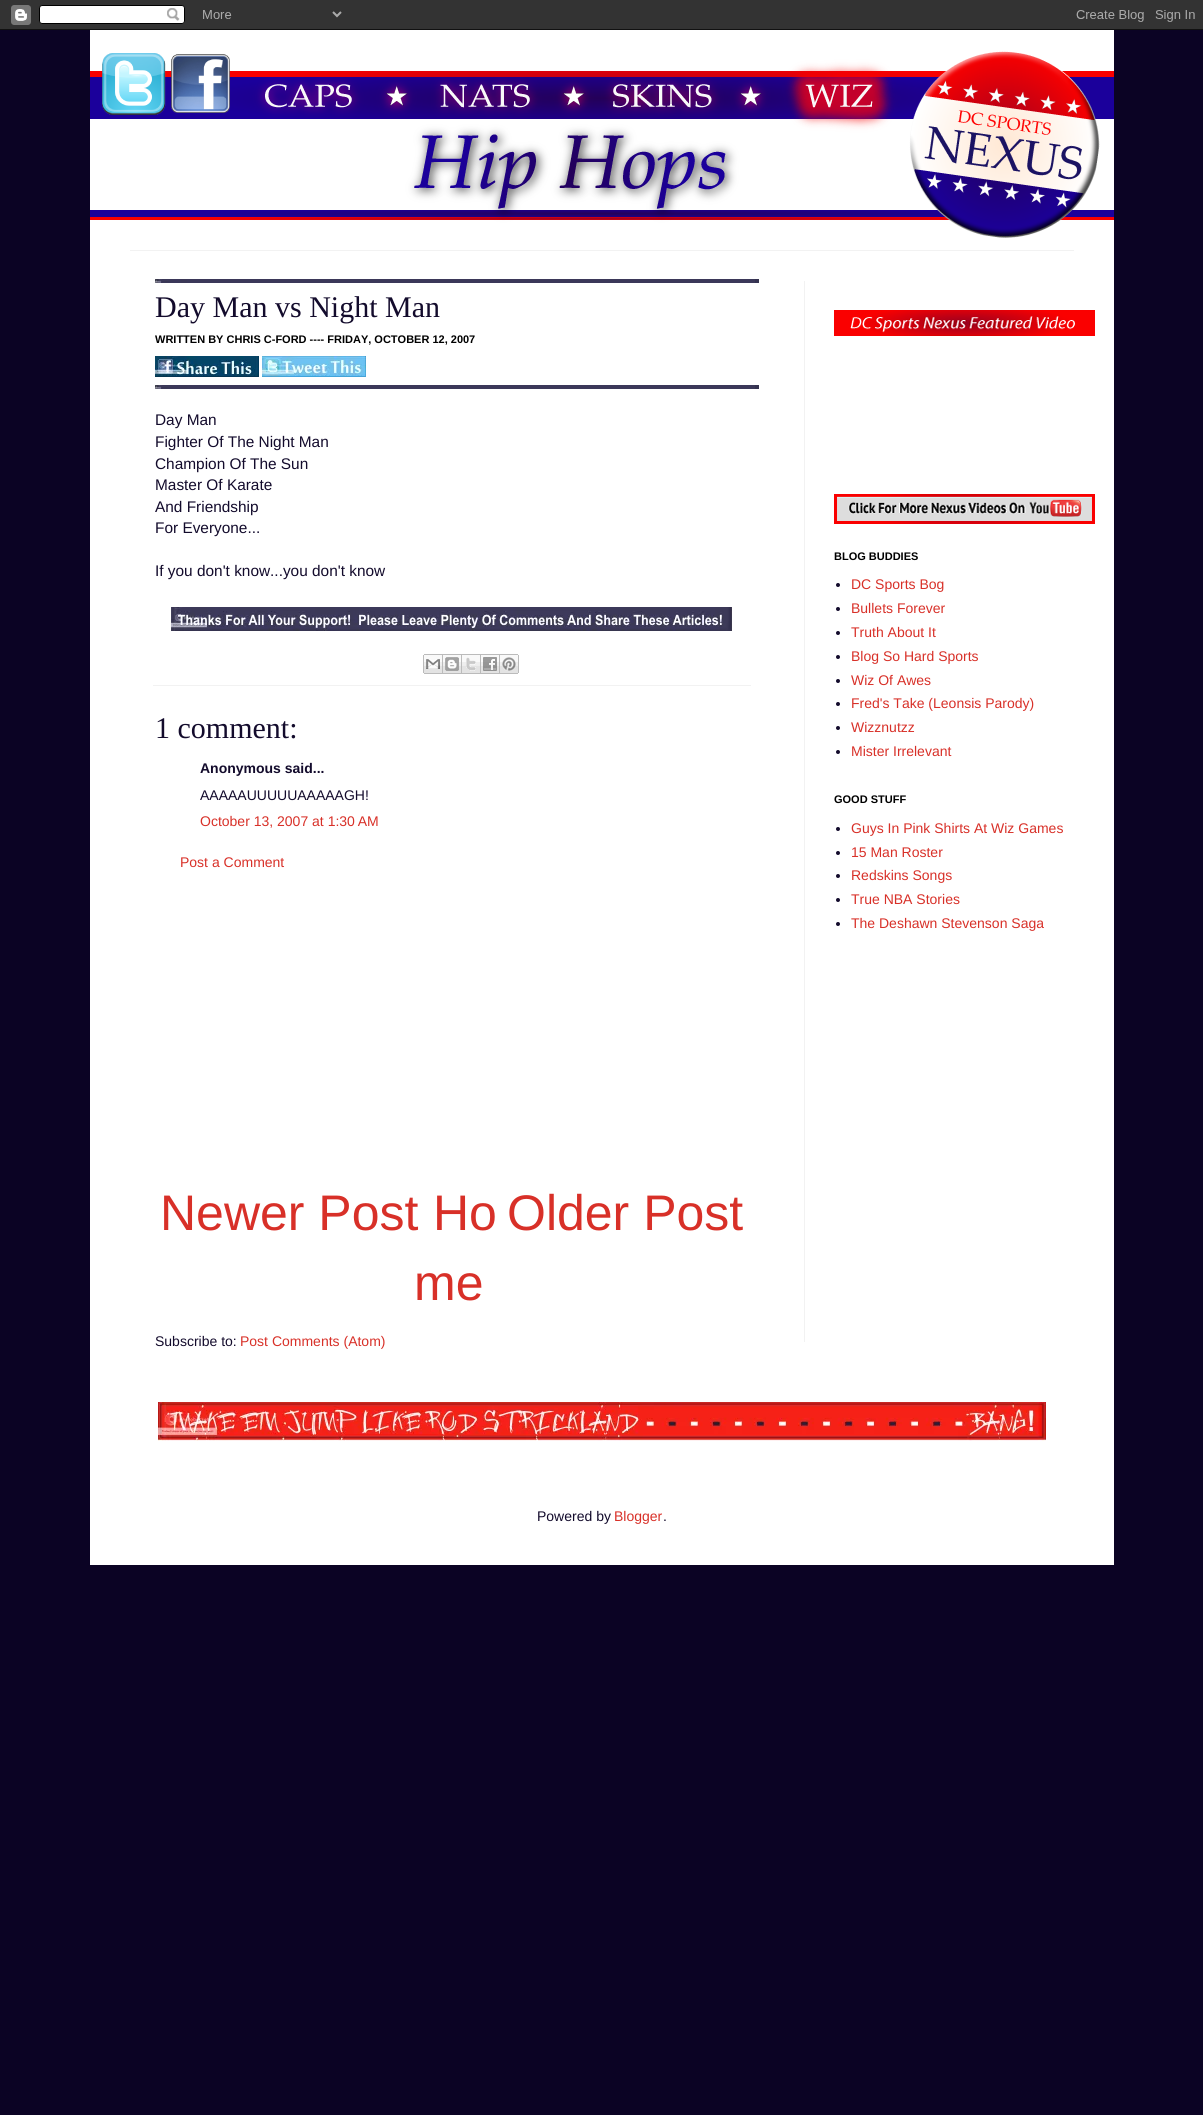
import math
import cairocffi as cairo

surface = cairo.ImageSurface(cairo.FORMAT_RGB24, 1203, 2115)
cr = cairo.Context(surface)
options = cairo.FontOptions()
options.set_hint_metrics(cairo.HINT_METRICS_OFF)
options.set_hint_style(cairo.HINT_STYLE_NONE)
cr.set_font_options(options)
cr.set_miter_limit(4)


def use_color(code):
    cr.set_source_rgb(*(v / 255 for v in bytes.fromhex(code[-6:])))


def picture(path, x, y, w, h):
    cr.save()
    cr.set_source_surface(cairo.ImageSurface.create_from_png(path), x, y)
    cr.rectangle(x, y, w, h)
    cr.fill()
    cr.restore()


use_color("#0b0324")
cr.paint()
picture("img1.png", 0, 0, 1203, 30)
use_color("#ffffff")
cr.rectangle(90, 30, 1024, 1535)
cr.fill()
picture("img2.png", 90, 51, 1024, 187)
use_color("#f2f2f2")
cr.rectangle(130, 250, 944, 1)
cr.fill()
cr.rectangle(804, 281, 1, 1061)
cr.fill()
picture("img3.png", 155, 279, 604, 4)
cr.select_font_face("Liberation Serif")
cr.set_font_size(30)
use_color("#130b2c")
cr.move_to(155, 317)
cr.show_text("Day Man vs Night Man")
cr.select_font_face("Liberation Sans", cairo.FONT_SLANT_NORMAL, cairo.FONT_WEIGHT_BOLD)
cr.set_font_size(11)
use_color("#000000")
cr.move_to(155, 343)
cr.show_text("WRITTEN BY CHRIS C-FORD ---- FRIDAY, OCTOBER 12, 2007")
picture("img4.png", 155, 356, 104, 21)
picture("img5.png", 262, 356, 104, 21)
picture("img3.png", 155, 385, 604, 4)
cr.select_font_face("Liberation Sans")
cr.set_font_size(15.4)
use_color("#130b2c")
cr.move_to(155, 425)
cr.show_text("Day Man")
cr.move_to(155, 447)
cr.show_text("Fighter Of The Night Man")
cr.move_to(155, 469)
cr.show_text("Champion Of The Sun")
cr.move_to(155, 490)
cr.show_text("Master Of Karate")
cr.move_to(155, 512)
cr.show_text("And Friendship")
cr.move_to(155, 533)
cr.show_text("For Everyone...")
cr.move_to(155, 576)
cr.show_text("If you don't know...you don't know")
use_color("#f2f2f2")
cr.rectangle(153, 685, 598, 1)
cr.fill()
picture("img6.png", 171, 607, 561, 24)
picture("img7.png", 423, 654, 20, 20)
picture("img8.png", 443, 654, 19, 20)
picture("img9.png", 462, 654, 19, 20)
picture("img10.png", 481, 654, 19, 20)
picture("img11.png", 500, 654, 19, 20)
cr.select_font_face("Liberation Serif")
cr.set_font_size(30)
use_color("#130b2c")
cr.move_to(155, 738)
cr.show_text("1 comment:")
cr.select_font_face("Liberation Sans", cairo.FONT_SLANT_NORMAL, cairo.FONT_WEIGHT_BOLD)
cr.set_font_size(14)
cr.move_to(200, 773)
cr.show_text("Anonymous said...")
cr.select_font_face("Liberation Sans")
cr.move_to(200, 800)
cr.show_text("AAAAAUUUUUAAAAAGH!")
use_color("#d83028")
cr.move_to(200, 826)
cr.show_text("October 13, 2007 at 1:30 AM")
cr.move_to(180, 867)
cr.show_text("Post a Comment")
cr.set_font_size(50)
cr.move_to(160, 1230)
cr.show_text("Newer Post")
cr.move_to(433, 1230)
cr.show_text("Ho")
cr.move_to(507, 1230)
cr.show_text("Older Post")
cr.move_to(414, 1300)
cr.show_text("me")
cr.set_font_size(14)
use_color("#130b2c")
cr.move_to(155, 1346)
cr.show_text("Subscribe to:")
use_color("#d83028")
cr.move_to(240, 1346)
cr.show_text("Post Comments (Atom)")
picture("img12.png", 834, 310, 261, 26)
picture("img13.png", 834, 494, 261, 30)
cr.select_font_face("Liberation Sans", cairo.FONT_SLANT_NORMAL, cairo.FONT_WEIGHT_BOLD)
cr.set_font_size(11)
use_color("#000000")
cr.move_to(834, 560)
cr.show_text("BLOG BUDDIES")
use_color("#130b2c")
cr.new_path()
cr.arc(838, 585, 2, 0, 2 * math.pi)
cr.fill()
cr.select_font_face("Liberation Sans")
cr.set_font_size(14)
use_color("#d83028")
cr.move_to(851, 589)
cr.show_text("DC Sports Bog")
use_color("#130b2c")
cr.new_path()
cr.arc(838, 609, 2, 0, 2 * math.pi)
cr.fill()
use_color("#d83028")
cr.move_to(851, 613)
cr.show_text("Bullets Forever")
use_color("#130b2c")
cr.new_path()
cr.arc(838, 633, 2, 0, 2 * math.pi)
cr.fill()
use_color("#d83028")
cr.move_to(851, 637)
cr.show_text("Truth About It")
use_color("#130b2c")
cr.new_path()
cr.arc(838, 657, 2, 0, 2 * math.pi)
cr.fill()
use_color("#d83028")
cr.move_to(851, 661)
cr.show_text("Blog So Hard Sports")
use_color("#130b2c")
cr.new_path()
cr.arc(838, 681, 2, 0, 2 * math.pi)
cr.fill()
use_color("#d83028")
cr.move_to(851, 685)
cr.show_text("Wiz Of Awes")
use_color("#130b2c")
cr.new_path()
cr.arc(838, 704, 2, 0, 2 * math.pi)
cr.fill()
use_color("#d83028")
cr.move_to(851, 708)
cr.show_text("Fred's Take (Leonsis Parody)")
use_color("#130b2c")
cr.new_path()
cr.arc(838, 728, 2, 0, 2 * math.pi)
cr.fill()
use_color("#d83028")
cr.move_to(851, 732)
cr.show_text("Wizznutzz")
use_color("#130b2c")
cr.new_path()
cr.arc(838, 752, 2, 0, 2 * math.pi)
cr.fill()
use_color("#d83028")
cr.move_to(851, 756)
cr.show_text("Mister Irrelevant")
cr.select_font_face("Liberation Sans", cairo.FONT_SLANT_NORMAL, cairo.FONT_WEIGHT_BOLD)
cr.set_font_size(11)
use_color("#000000")
cr.move_to(834, 803)
cr.show_text("GOOD STUFF")
use_color("#130b2c")
cr.new_path()
cr.arc(838, 829, 2, 0, 2 * math.pi)
cr.fill()
cr.select_font_face("Liberation Sans")
cr.set_font_size(14)
use_color("#d83028")
cr.move_to(851, 833)
cr.show_text("Guys In Pink Shirts At Wiz Games")
use_color("#130b2c")
cr.new_path()
cr.arc(838, 853, 2, 0, 2 * math.pi)
cr.fill()
use_color("#d83028")
cr.move_to(851, 857)
cr.show_text("15 Man Roster")
use_color("#130b2c")
cr.new_path()
cr.arc(838, 876, 2, 0, 2 * math.pi)
cr.fill()
use_color("#d83028")
cr.move_to(851, 880)
cr.show_text("Redskins Songs")
use_color("#130b2c")
cr.new_path()
cr.arc(838, 900, 2, 0, 2 * math.pi)
cr.fill()
use_color("#d83028")
cr.move_to(851, 904)
cr.show_text("True NBA Stories")
use_color("#130b2c")
cr.new_path()
cr.arc(838, 924, 2, 0, 2 * math.pi)
cr.fill()
use_color("#d83028")
cr.move_to(851, 928)
cr.show_text("The Deshawn Stevenson Saga")
picture("img14.png", 158, 1402, 888, 39)
use_color("#130b2c")
cr.move_to(537, 1521)
cr.show_text("Powered by")
use_color("#d83028")
cr.move_to(614, 1521)
cr.show_text("Blogger")
use_color("#130b2c")
cr.move_to(663, 1521)
cr.show_text(".")
surface.write_to_png("result.png")
